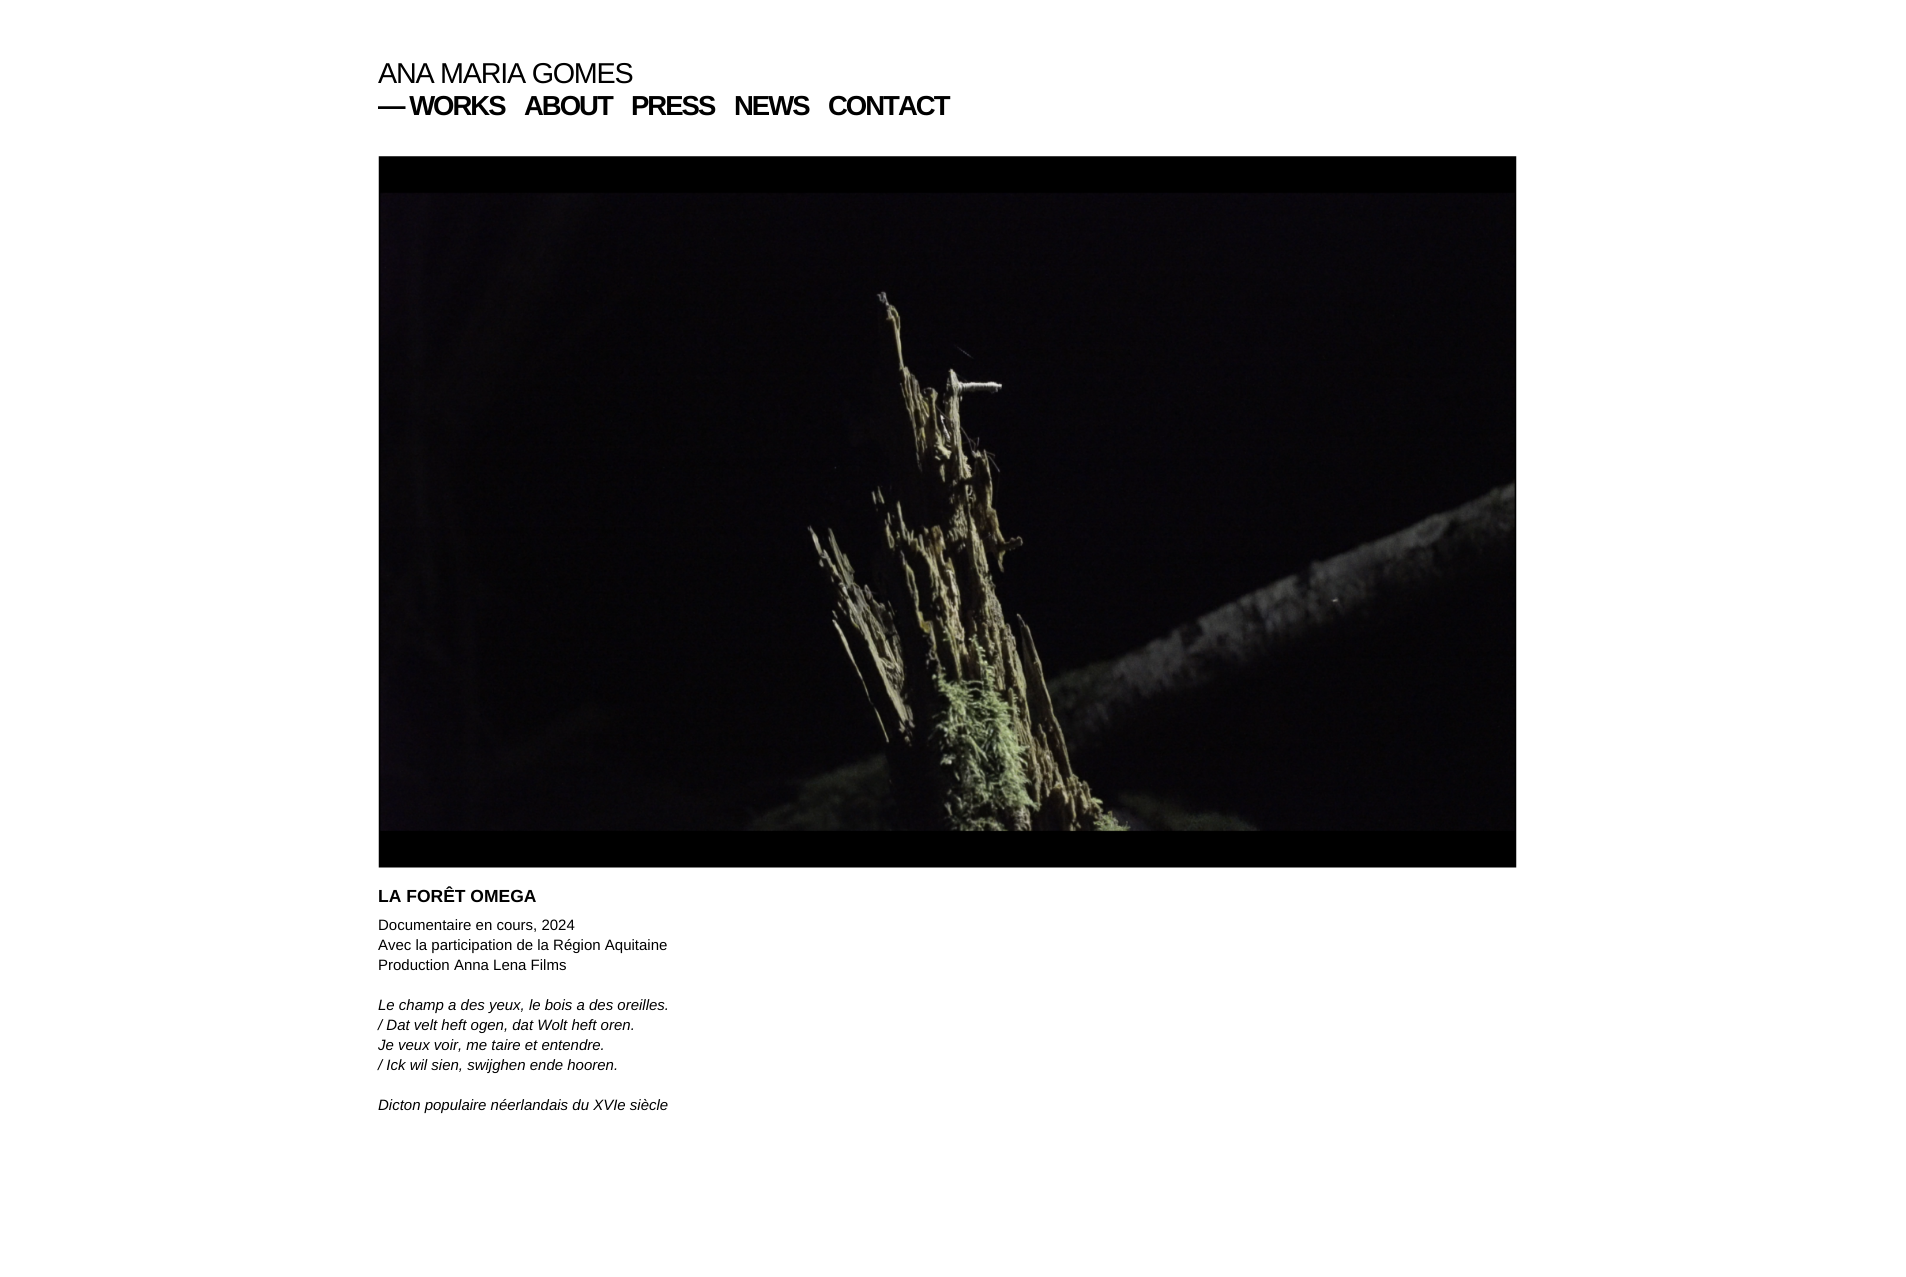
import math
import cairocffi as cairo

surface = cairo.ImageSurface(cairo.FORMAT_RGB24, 1906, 1277)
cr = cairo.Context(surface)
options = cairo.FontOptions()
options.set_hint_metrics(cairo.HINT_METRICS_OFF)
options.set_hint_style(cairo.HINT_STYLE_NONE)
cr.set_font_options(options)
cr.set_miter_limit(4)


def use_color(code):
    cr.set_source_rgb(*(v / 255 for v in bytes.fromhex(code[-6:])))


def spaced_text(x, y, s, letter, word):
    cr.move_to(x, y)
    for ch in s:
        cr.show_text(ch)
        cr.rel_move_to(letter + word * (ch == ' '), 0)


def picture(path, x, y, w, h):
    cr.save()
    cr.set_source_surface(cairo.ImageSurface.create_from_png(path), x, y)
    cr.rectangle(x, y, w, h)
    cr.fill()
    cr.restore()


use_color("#ffffff")
cr.paint()
cr.select_font_face("Liberation Sans")
cr.set_font_size(28.75)
use_color("#000000")
spaced_text(378, 83, "ANA MARIA GOMES", -1.25, 0)
cr.select_font_face("Liberation Sans", cairo.FONT_SLANT_NORMAL, cairo.FONT_WEIGHT_BOLD)
cr.set_font_size(27.5)
spaced_text(378, 115, "— WORKS", -2, 0)
spaced_text(524, 115, "ABOUT", -2, 0)
spaced_text(631, 115, "PRESS", -2, 0)
spaced_text(734, 115, "NEWS", -2, 0)
spaced_text(828, 115, "CONTACT", -2, 0)
picture("img1.png", 378, 156, 1139, 712)
cr.set_font_size(17.5)
cr.move_to(378, 902)
cr.show_text("LA FORÊT OMEGA")
cr.select_font_face("Liberation Sans")
cr.set_font_size(15)
cr.move_to(378, 930)
cr.show_text("Documentaire en cours, 2024")
cr.move_to(378, 950)
cr.show_text("Avec la participation de la Région Aquitaine")
cr.move_to(378, 970)
cr.show_text("Production Anna Lena Films")
cr.select_font_face("Liberation Sans", cairo.FONT_SLANT_ITALIC)
cr.move_to(378, 1010)
cr.show_text("Le champ a des yeux, le bois a des oreilles.")
cr.move_to(378, 1030)
cr.show_text("/ Dat velt heft ogen, dat Wolt heft oren.")
cr.move_to(378, 1050)
cr.show_text("Je veux voir, me taire et entendre.")
cr.move_to(378, 1070)
cr.show_text("/ Ick wil sien, swijghen ende hooren.")
cr.move_to(378, 1110)
cr.show_text("Dicton populaire néerlandais du XVIe siècle")
surface.write_to_png("result.png")
